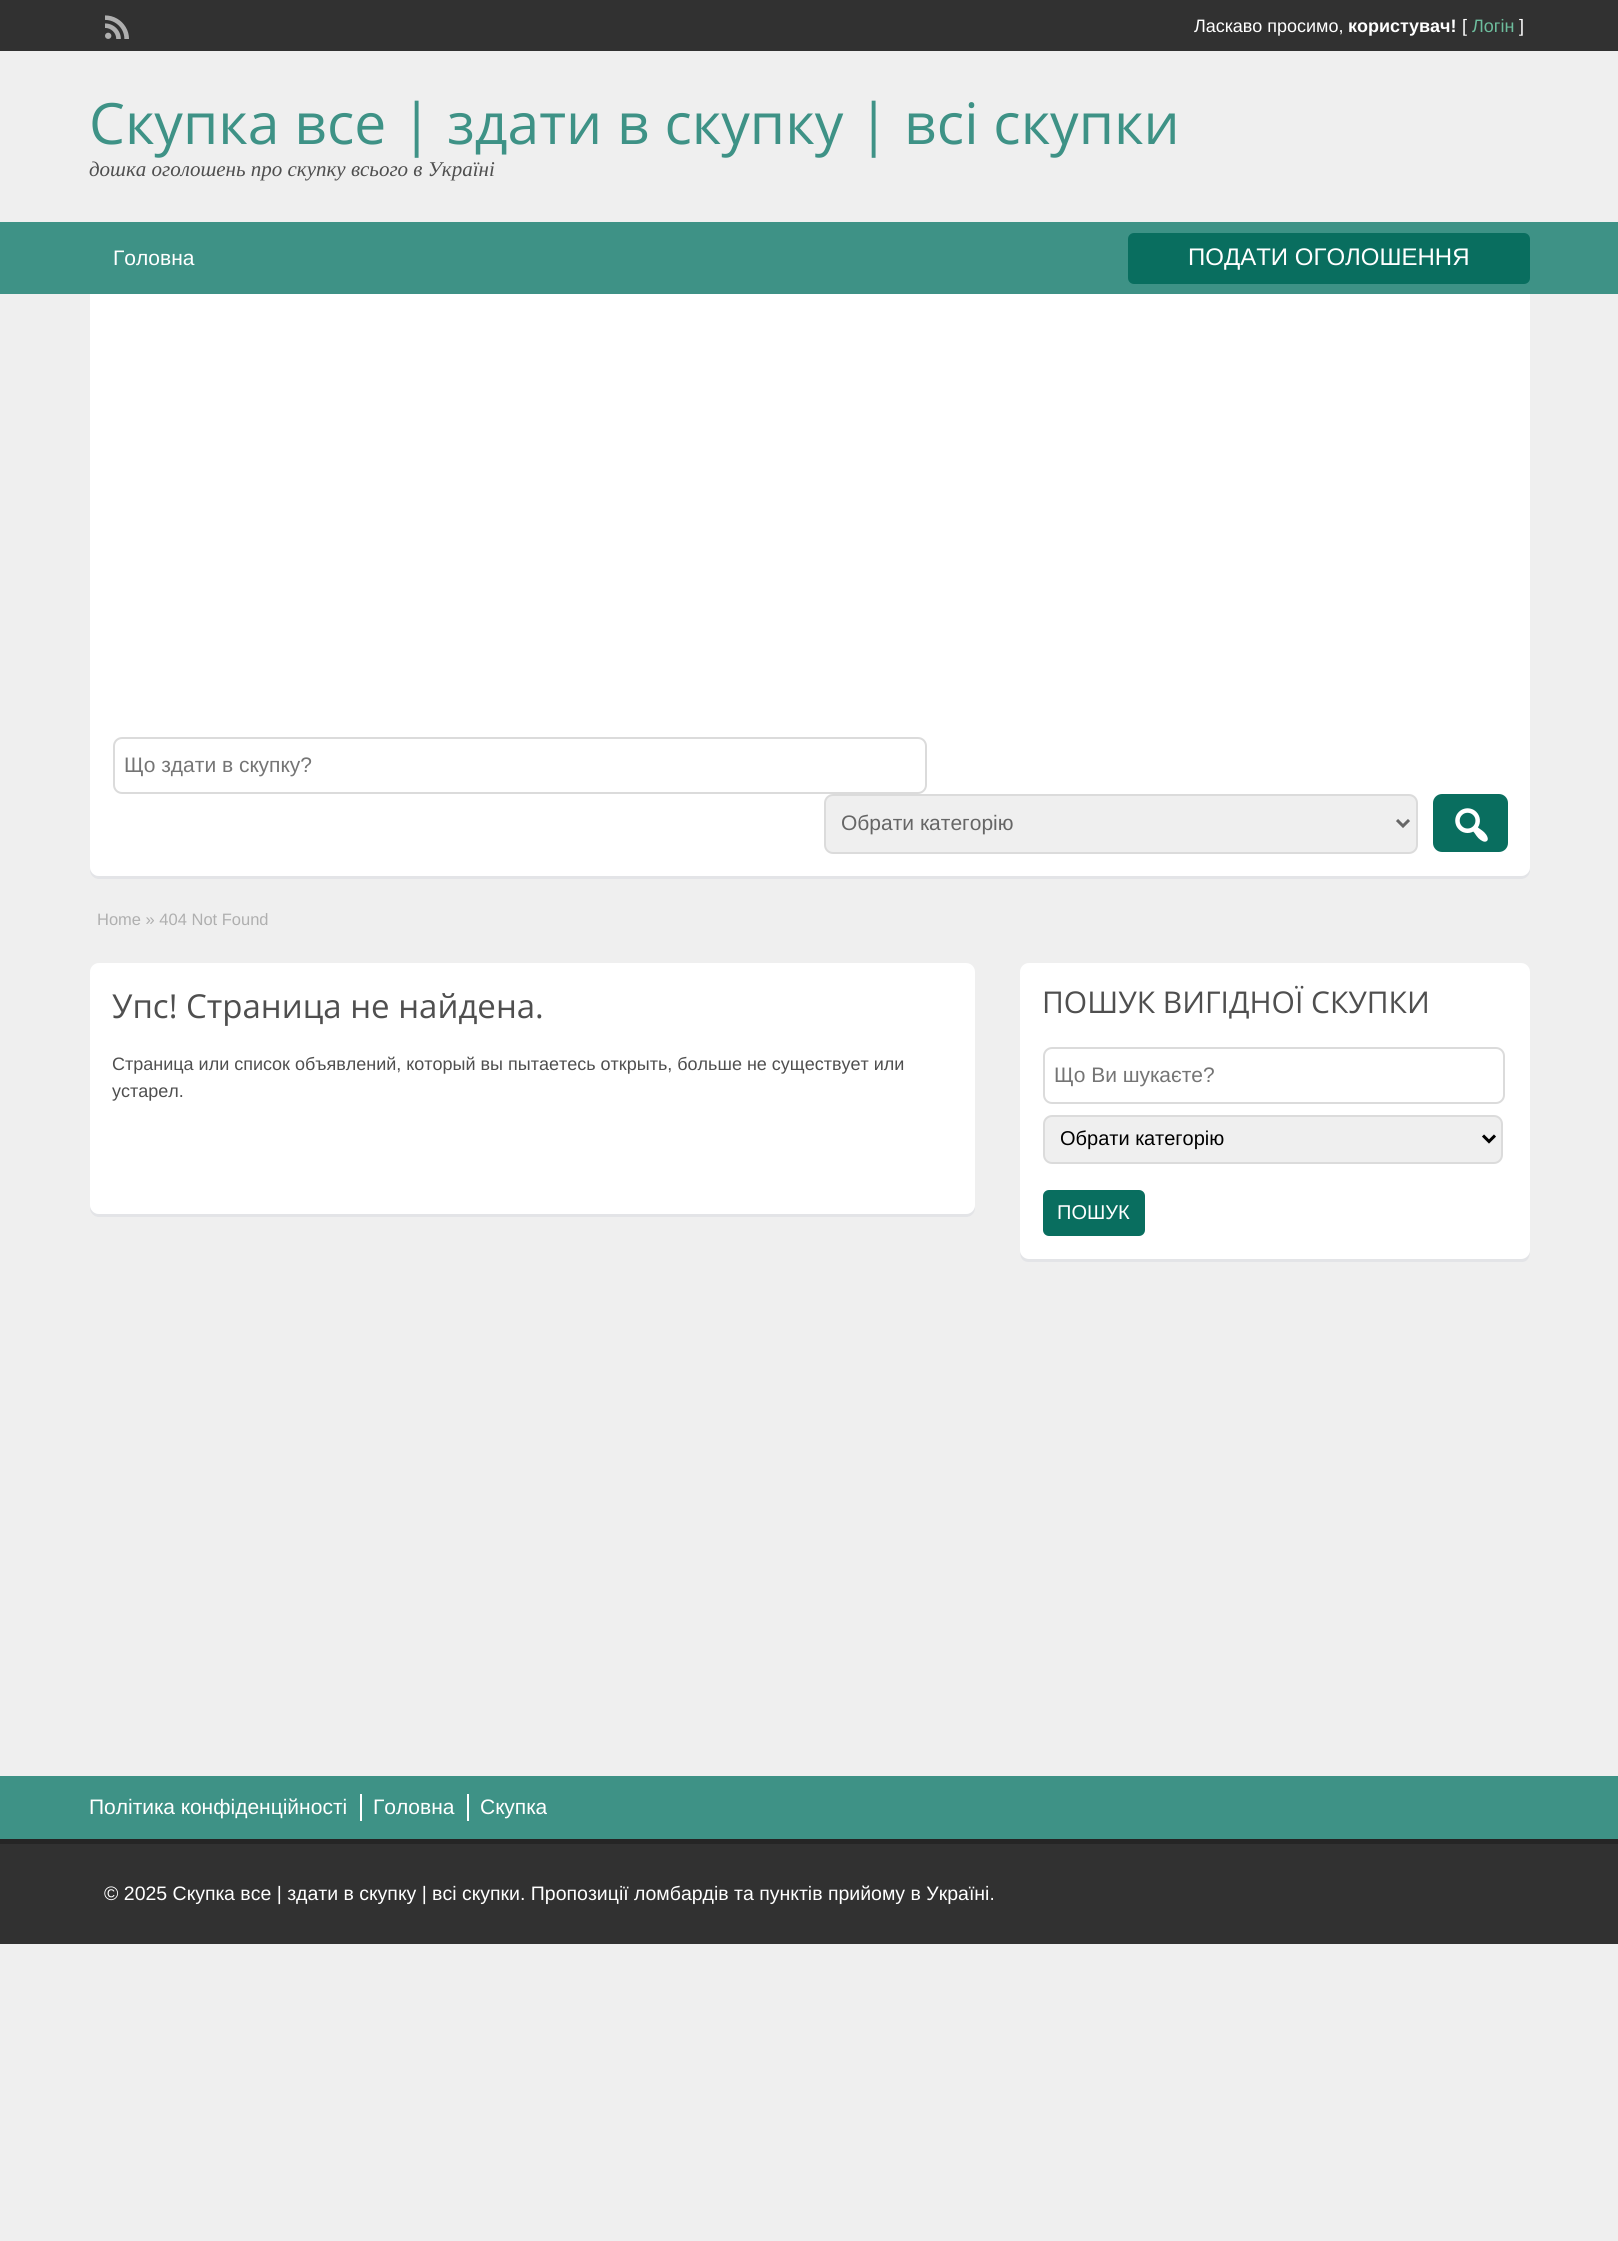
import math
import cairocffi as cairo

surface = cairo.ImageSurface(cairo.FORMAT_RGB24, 1618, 2241)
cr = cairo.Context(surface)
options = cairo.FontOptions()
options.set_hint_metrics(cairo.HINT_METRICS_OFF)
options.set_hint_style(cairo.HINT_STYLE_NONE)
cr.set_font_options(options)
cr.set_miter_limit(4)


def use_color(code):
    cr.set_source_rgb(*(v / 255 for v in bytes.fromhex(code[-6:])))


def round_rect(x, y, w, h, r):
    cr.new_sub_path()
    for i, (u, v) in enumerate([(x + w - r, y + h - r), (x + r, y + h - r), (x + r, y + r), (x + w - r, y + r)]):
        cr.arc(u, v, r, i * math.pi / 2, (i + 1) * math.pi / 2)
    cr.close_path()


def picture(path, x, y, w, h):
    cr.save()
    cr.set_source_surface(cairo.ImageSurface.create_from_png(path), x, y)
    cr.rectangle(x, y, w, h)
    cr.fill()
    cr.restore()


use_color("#efefef")
cr.paint()
use_color("#313131")
cr.rectangle(0, 0, 1618, 51)
cr.fill()
picture("img1.png", 105, 15, 24, 24)
cr.select_font_face("Liberation Sans")
cr.set_font_size(18)
use_color("#ffffff")
cr.move_to(1194, 32)
cr.show_text("Ласкаво просимо,")
cr.select_font_face("Liberation Sans", cairo.FONT_SLANT_NORMAL, cairo.FONT_WEIGHT_BOLD)
cr.move_to(1348, 32)
cr.show_text("користувач!")
cr.select_font_face("Liberation Sans")
cr.move_to(1462, 32)
cr.show_text("[")
use_color("#6dbd9d")
cr.move_to(1472, 32)
cr.show_text("Логін")
use_color("#ffffff")
cr.move_to(1519, 32)
cr.show_text("]")
cr.select_font_face("Open Sans")
cr.set_font_size(57)
use_color("#3e9286")
cr.move_to(89, 144)
cr.show_text("Скупка все | здати в скупку | всі скупки")
cr.select_font_face("Liberation Serif", cairo.FONT_SLANT_ITALIC)
cr.set_font_size(21)
use_color("#4f4f4f")
cr.move_to(89, 176)
cr.show_text("дошка оголошень про скупку всього в Україні")
use_color("#3e9286")
cr.rectangle(0, 222, 1618, 72)
cr.fill()
cr.select_font_face("Liberation Sans")
use_color("#ffffff")
cr.move_to(113, 265)
cr.show_text("Головна")
use_color("#096e5f")
round_rect(1128, 233, 402, 51, 6)
cr.fill()
cr.set_font_size(24)
use_color("#ffffff")
cr.move_to(1188, 265)
cr.show_text("ПОДАТИ ОГОЛОШЕННЯ")
use_color("#e3e4e7")
cr.new_path()
cr.move_to(90, 867)
cr.line_to(90, 870)
cr.curve_to(90, 875, 94, 879, 99, 879)
cr.line_to(1521, 879)
cr.curve_to(1526, 879, 1530, 875, 1530, 870)
cr.line_to(1530, 867)
cr.curve_to(1530, 872, 1526, 876, 1521, 876)
cr.line_to(99, 876)
cr.curve_to(94, 876, 90, 872, 90, 867)
cr.close_path()
cr.fill()
use_color("#ffffff")
cr.new_path()
cr.move_to(90, 294)
cr.line_to(1530, 294)
cr.line_to(1530, 867)
cr.curve_to(1530, 872, 1526, 876, 1521, 876)
cr.line_to(99, 876)
cr.curve_to(94, 876, 90, 872, 90, 867)
cr.close_path()
cr.fill()
round_rect(114, 738, 812, 55, 8)
use_color("#dbdbdb")
cr.stroke()
cr.set_font_size(21)
use_color("#757575")
cr.move_to(124, 772)
cr.show_text("Що здати в скупку?")
use_color("#efefef")
round_rect(825, 795, 592, 58, 8)
cr.fill_preserve()
use_color("#dbdbdb")
cr.stroke()
cr.new_path()
cr.move_to(1397, 820)
cr.line_to(1403, 826)
cr.line_to(1409, 820)
use_color("#666666")
cr.set_line_width(3)
cr.stroke()
cr.save()
cr.rectangle(842, 810, 540, 27)
cr.clip()
cr.move_to(841, 830)
cr.show_text("Обрати категорію")
cr.restore()
use_color("#096e5f")
round_rect(1433, 794, 75, 58, 9)
cr.fill()
picture("img2.png", 1455, 808, 33, 34)
cr.set_font_size(16.5)
use_color("#afafaf")
cr.move_to(97, 925)
cr.show_text("Home » 404 Not Found")
use_color("#e3e4e7")
cr.new_path()
cr.move_to(90, 1204)
cr.line_to(90, 1208)
cr.curve_to(90, 1213, 94, 1217, 99, 1217)
cr.line_to(966, 1217)
cr.curve_to(971, 1217, 975, 1213, 975, 1208)
cr.line_to(975, 1204)
cr.curve_to(975, 1209, 971, 1214, 966, 1214)
cr.line_to(99, 1214)
cr.curve_to(94, 1214, 90, 1209, 90, 1204)
cr.close_path()
cr.fill()
use_color("#ffffff")
round_rect(90, 963, 885, 251, 9)
cr.fill()
cr.select_font_face("Open Sans")
cr.set_font_size(33)
use_color("#4f4f4f")
cr.move_to(112, 1018)
cr.show_text("Упс! Страница не найдена.")
cr.select_font_face("Liberation Sans")
cr.set_font_size(18)
cr.move_to(112, 1070)
cr.show_text("Страница или список объявлений, который вы пытаетесь открыть, больше не существует или")
cr.move_to(112, 1097)
cr.show_text("устарел.")
use_color("#e3e4e7")
cr.new_path()
cr.move_to(1020, 1250)
cr.curve_to(1020, 1256, 1021, 1262, 1029, 1262)
cr.line_to(1523, 1262)
cr.curve_to(1529, 1261, 1530, 1255, 1530, 1250)
cr.curve_to(1530, 1254, 1526, 1258, 1521, 1258)
cr.line_to(1029, 1258)
cr.curve_to(1024, 1258, 1020, 1254, 1020, 1250)
cr.close_path()
cr.fill()
use_color("#ffffff")
round_rect(1020, 963, 510, 296, 9)
cr.fill()
cr.select_font_face("Open Sans")
cr.set_font_size(30)
use_color("#4f4f4f")
cr.move_to(1042, 1013)
cr.show_text("ПОШУК ВИГІДНОЇ СКУПКИ")
round_rect(1044, 1048, 460, 55, 8)
use_color("#dbdbdb")
cr.set_line_width(2)
cr.stroke()
cr.select_font_face("Liberation Sans")
cr.set_font_size(21)
use_color("#757575")
cr.move_to(1054, 1082)
cr.show_text("Що Ви шукаєте?")
use_color("#efefef")
round_rect(1044, 1116, 458, 47, 8)
cr.fill_preserve()
use_color("#dbdbdb")
cr.stroke()
cr.new_path()
cr.move_to(1483, 1135.5)
cr.line_to(1489, 1141.5)
cr.line_to(1495, 1135.5)
use_color("#000000")
cr.set_line_width(3)
cr.stroke()
cr.save()
cr.rectangle(1061, 1127, 406, 25)
cr.clip()
cr.set_font_size(20)
cr.move_to(1060, 1145)
cr.show_text("Обрати категорію")
cr.restore()
use_color("#096e5f")
round_rect(1043, 1190, 102, 46, 6)
cr.fill()
cr.set_font_size(20)
use_color("#ffffff")
cr.move_to(1057, 1219)
cr.show_text("ПОШУК")
use_color("#313131")
cr.rectangle(0, 1844, 1618, 100)
cr.fill()
use_color("#3e9286")
cr.rectangle(0, 1776, 1618, 63)
cr.fill()
cr.set_font_size(21)
use_color("#ffffff")
cr.move_to(89, 1814)
cr.show_text("Політика конфіденційності")
cr.rectangle(360, 1794, 2, 27)
cr.fill()
cr.move_to(373, 1814)
cr.show_text("Головна")
cr.rectangle(467, 1794, 2, 27)
cr.fill()
cr.move_to(480, 1814)
cr.show_text("Скупка")
use_color("#252525")
cr.rectangle(0, 1839, 1618, 5)
cr.fill()
cr.set_font_size(19.5)
use_color("#ffffff")
cr.move_to(104, 1900)
cr.show_text("© 2025 Скупка все | здати в скупку | всі скупки. Пропозиції ломбардів та пунктів прийому в Україні.")
surface.write_to_png("result.png")
